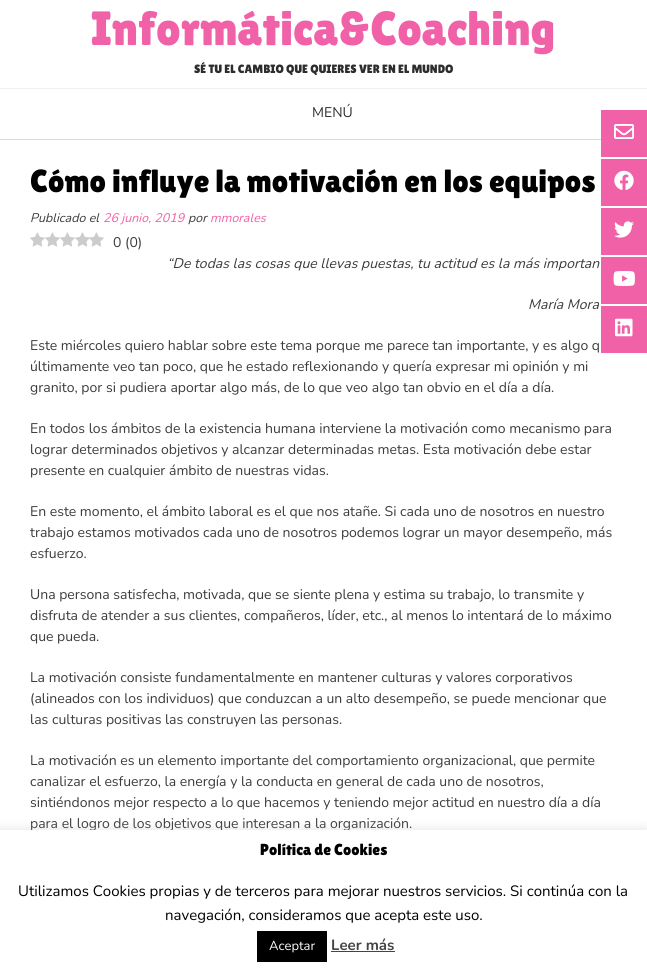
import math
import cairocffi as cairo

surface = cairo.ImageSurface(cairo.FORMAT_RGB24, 647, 974)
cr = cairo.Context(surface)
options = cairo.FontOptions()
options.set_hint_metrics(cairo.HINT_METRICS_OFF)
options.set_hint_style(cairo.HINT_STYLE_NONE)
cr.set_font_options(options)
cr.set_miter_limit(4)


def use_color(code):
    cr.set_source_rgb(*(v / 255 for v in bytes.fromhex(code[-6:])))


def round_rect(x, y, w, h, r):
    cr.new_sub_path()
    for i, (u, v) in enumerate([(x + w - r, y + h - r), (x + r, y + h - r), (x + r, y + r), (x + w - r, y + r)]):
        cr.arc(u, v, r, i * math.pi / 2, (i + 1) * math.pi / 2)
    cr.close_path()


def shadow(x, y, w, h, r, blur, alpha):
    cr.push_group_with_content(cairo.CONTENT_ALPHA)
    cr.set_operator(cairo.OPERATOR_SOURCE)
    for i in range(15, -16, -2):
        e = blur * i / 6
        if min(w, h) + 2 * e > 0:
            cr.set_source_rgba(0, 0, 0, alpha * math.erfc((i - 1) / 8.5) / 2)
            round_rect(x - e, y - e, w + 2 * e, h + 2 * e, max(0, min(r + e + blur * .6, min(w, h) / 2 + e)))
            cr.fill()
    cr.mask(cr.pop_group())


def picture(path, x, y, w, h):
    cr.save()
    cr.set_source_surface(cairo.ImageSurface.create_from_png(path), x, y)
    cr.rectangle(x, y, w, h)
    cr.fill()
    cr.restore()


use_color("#ffffff")
cr.paint()
use_color("#dbdbdb")
cr.rectangle(0, 139, 601, 1)
cr.fill()
cr.select_font_face("Lilita One")
cr.set_font_size(48)
use_color("#f061a8")
cr.move_to(91, 45)
cr.show_text("Informática&Coaching")
cr.set_font_size(12)
use_color("#2d2d2d")
cr.move_to(194, 73)
cr.show_text("SÉ TU EL CAMBIO QUE QUIERES VER EN EL MUNDO")
use_color("#efefef")
cr.rectangle(0, 88, 647, 1)
cr.fill()
cr.select_font_face("Nunito")
cr.set_font_size(14)
use_color("#2d2d2d")
cr.move_to(312, 117)
cr.show_text("MENÚ")
cr.select_font_face("Lilita One")
cr.set_font_size(32)
use_color("#000000")
cr.move_to(30, 192)
cr.show_text("Cómo influye la motivación en los equipos")
cr.select_font_face("Nunito", cairo.FONT_SLANT_ITALIC)
cr.set_font_size(12.5)
use_color("#3c3c3c")
cr.move_to(30, 222)
cr.show_text("Publicado el")
use_color("#f061a8")
cr.move_to(103, 222)
cr.show_text("26 junio, 2019")
use_color("#3c3c3c")
cr.move_to(188, 222)
cr.show_text("por")
use_color("#f061a8")
cr.move_to(210, 222)
cr.show_text("mmorales")
picture("img1.png", 30, 232, 15, 15)
picture("img1.png", 45, 232, 15, 15)
picture("img1.png", 60, 232, 15, 15)
picture("img1.png", 75, 232, 15, 15)
picture("img2.png", 89, 232, 15, 15)
cr.select_font_face("Nunito")
cr.set_font_size(14)
use_color("#3c3c3c")
cr.move_to(113, 247)
cr.show_text("0 (0)")
cr.select_font_face("Nunito", cairo.FONT_SLANT_ITALIC)
cr.move_to(167, 268)
cr.show_text("“De todas las cosas que llevas puestas, tu actitud es la más importan")
cr.move_to(528, 309)
cr.show_text("María Mora")
cr.select_font_face("Nunito")
cr.move_to(30, 350)
cr.show_text("Este miércoles quiero hablar sobre este tema porque me parece tan importante, y es algo q")
cr.move_to(30, 371)
cr.show_text("últimamente veo tan poco, que he estado reflexionando y quería expresar mi opinión y mi")
cr.move_to(30, 392)
cr.show_text("granito, por si pudiera aportar algo más, de lo que veo algo tan obvio en el día a día.")
cr.move_to(30, 433)
cr.show_text("En todos los ámbitos de la existencia humana interviene la motivación como mecanismo para")
cr.move_to(30, 454)
cr.show_text("lograr determinados objetivos y alcanzar determinadas metas. Esta motivación debe estar")
cr.move_to(30, 475)
cr.show_text("presente en cualquier ámbito de nuestras vidas.")
cr.move_to(30, 516)
cr.show_text("En este momento, el ámbito laboral es el que nos atañe. Si cada uno de nosotros en nuestro")
cr.move_to(30, 537)
cr.show_text("trabajo estamos motivados cada uno de nosotros podemos lograr un mayor desempeño, más")
cr.move_to(30, 558)
cr.show_text("esfuerzo.")
cr.move_to(30, 599)
cr.show_text("Una persona satisfecha, motivada, que se siente plena y estima su trabajo, lo transmite y")
cr.move_to(30, 620)
cr.show_text("disfruta de atender a sus clientes, compañeros, líder, etc., al menos lo intentará de lo máximo")
cr.move_to(30, 641)
cr.show_text("que pueda.")
cr.move_to(30, 682)
cr.show_text("La motivación consiste fundamentalmente en mantener culturas y valores corporativos")
cr.move_to(30, 703)
cr.show_text("(alineados con los individuos) que conduzcan a un alto desempeño, se puede mencionar que")
cr.move_to(30, 724)
cr.show_text("las culturas positivas las construyen las personas.")
cr.move_to(30, 765)
cr.show_text("La motivación es un elemento importante del comportamiento organizacional, que permite")
cr.move_to(30, 786)
cr.show_text("canalizar el esfuerzo, la energía y la conducta en general de cada uno de nosotros,")
cr.move_to(30, 807)
cr.show_text("sintiéndonos mejor respecto a lo que hacemos y teniendo mejor actitud en nuestro día a día")
cr.move_to(30, 828)
cr.show_text("para el logro de los objetivos que interesan a la organización.")
use_color("#f061a8")
cr.rectangle(601, 110, 46, 47)
cr.fill()
picture("img3.png", 614, 124, 20, 15)
cr.rectangle(601, 159, 46, 47)
cr.fill()
picture("img4.png", 614, 170, 20, 20)
cr.rectangle(601, 208, 46, 47)
cr.fill()
picture("img5.png", 614, 221, 20, 17)
cr.rectangle(601, 257, 46, 47)
cr.fill()
picture("img6.png", 613, 271, 22, 15)
cr.rectangle(601, 306, 46, 47)
cr.fill()
picture("img7.png", 615, 318, 18, 19)
use_color("#acabab")
shadow(0, 829, 647, 144, 0, 5, 0.3)
use_color("#ffffff")
cr.rectangle(0, 830, 647, 144)
cr.fill()
cr.select_font_face("Lilita One")
cr.set_font_size(16)
use_color("#000000")
cr.move_to(260, 855)
cr.show_text("Política de Cookies")
cr.select_font_face("Nunito")
cr.set_font_size(15)
cr.move_to(18, 896)
cr.show_text("Utilizamos Cookies propias y de terceros para mejorar nuestros servicios. Si continúa con la")
cr.move_to(165, 920)
cr.show_text("navegación, consideramos que acepta este uso.")
cr.rectangle(257, 931, 70, 31)
cr.fill()
cr.set_font_size(13)
use_color("#ffffff")
cr.move_to(269, 950)
cr.show_text("Aceptar")
cr.select_font_face("Nunito", cairo.FONT_SLANT_NORMAL, cairo.FONT_WEIGHT_BOLD)
cr.set_font_size(15)
use_color("#444444")
cr.move_to(331, 950)
cr.show_text("Leer más")
cr.rectangle(331, 951, 64, 1)
cr.fill()
surface.write_to_png("result.png")
